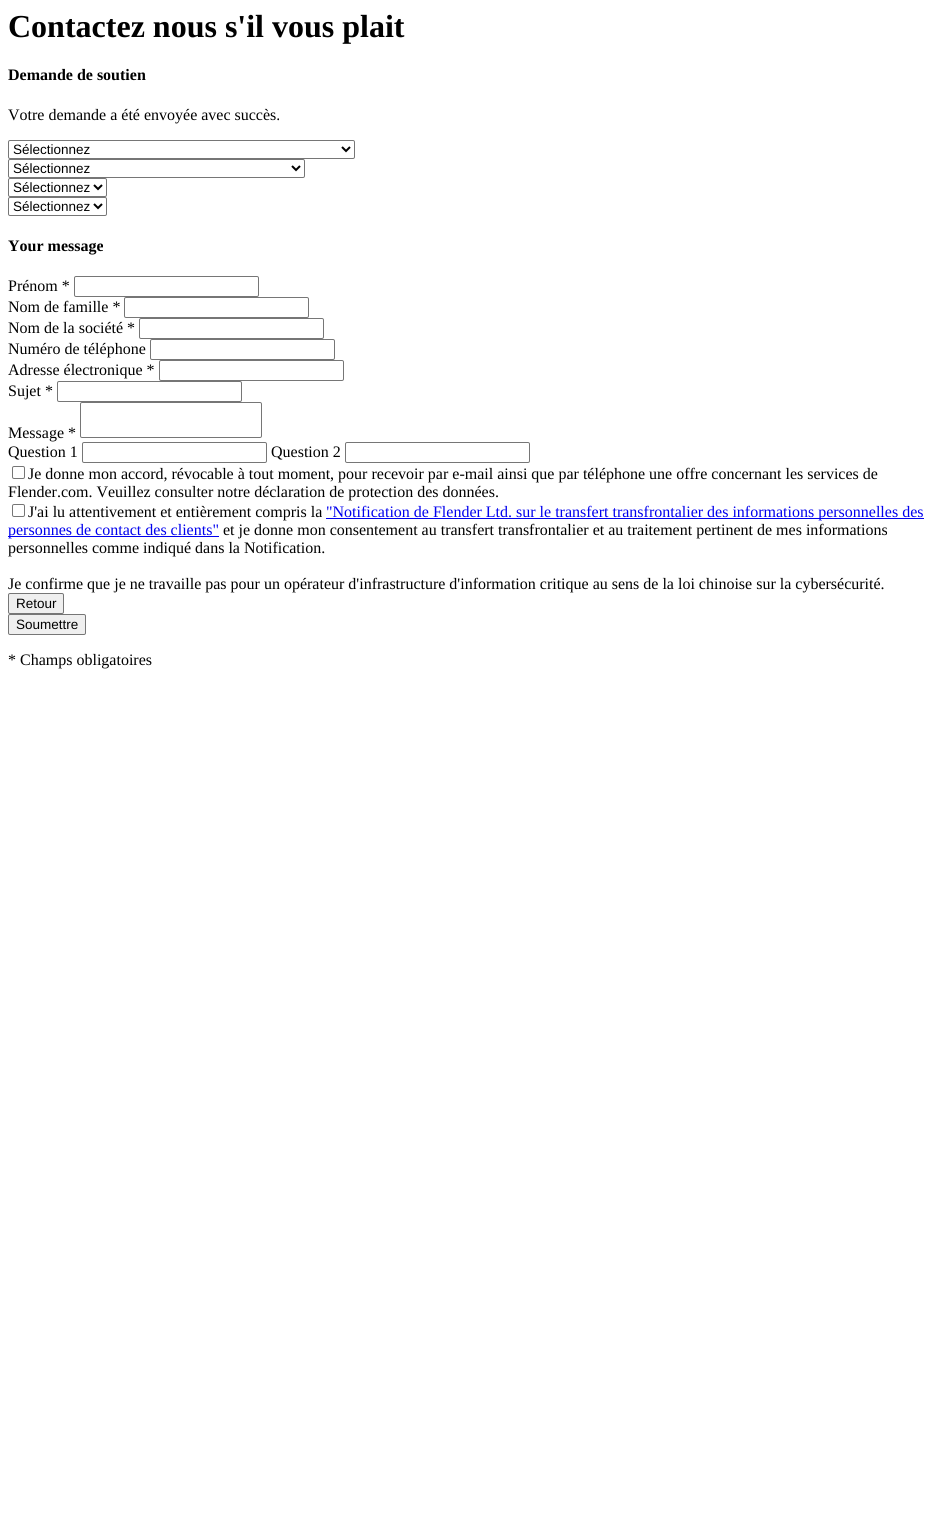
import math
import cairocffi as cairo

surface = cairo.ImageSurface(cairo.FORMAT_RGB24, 932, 1526)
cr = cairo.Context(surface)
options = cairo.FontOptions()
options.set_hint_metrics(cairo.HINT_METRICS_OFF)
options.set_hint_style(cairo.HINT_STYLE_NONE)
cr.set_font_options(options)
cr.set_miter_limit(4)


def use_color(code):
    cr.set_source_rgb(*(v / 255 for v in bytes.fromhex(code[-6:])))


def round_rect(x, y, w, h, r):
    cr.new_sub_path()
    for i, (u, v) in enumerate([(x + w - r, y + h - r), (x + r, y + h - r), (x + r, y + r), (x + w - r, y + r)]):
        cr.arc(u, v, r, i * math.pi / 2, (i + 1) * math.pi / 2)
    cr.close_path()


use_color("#ffffff")
cr.paint()
cr.select_font_face("Liberation Serif", cairo.FONT_SLANT_NORMAL, cairo.FONT_WEIGHT_BOLD)
cr.set_font_size(32)
use_color("#000000")
cr.move_to(8, 37)
cr.show_text("Contactez nous s'il vous plait")
cr.set_font_size(16)
cr.move_to(8, 80)
cr.show_text("Demande de soutien")
cr.select_font_face("Liberation Serif")
cr.move_to(8, 120)
cr.show_text("Votre demande a été envoyée avec succès.")
round_rect(8.5, 140.5, 346, 18, 1.5)
use_color("#767676")
cr.set_line_width(1)
cr.stroke()
cr.new_path()
cr.move_to(342, 147)
cr.line_to(346, 151)
cr.line_to(350, 147)
use_color("#000000")
cr.set_line_width(2)
cr.stroke()
cr.select_font_face("Liberation Sans")
cr.set_font_size(13.5)
cr.move_to(13, 154)
cr.show_text("Sélectionnez")
round_rect(8.5, 159.5, 296, 18, 1.5)
use_color("#767676")
cr.set_line_width(1)
cr.stroke()
cr.new_path()
cr.move_to(292, 166)
cr.line_to(296, 170)
cr.line_to(300, 166)
use_color("#000000")
cr.set_line_width(2)
cr.stroke()
cr.move_to(13, 173)
cr.show_text("Sélectionnez")
round_rect(8.5, 178.5, 98, 18, 1.5)
use_color("#767676")
cr.set_line_width(1)
cr.stroke()
cr.new_path()
cr.move_to(94, 185)
cr.line_to(98, 189)
cr.line_to(102, 185)
use_color("#000000")
cr.set_line_width(2)
cr.stroke()
cr.move_to(13, 192)
cr.show_text("Sélectionnez")
round_rect(8.5, 197.5, 98, 18, 1.5)
use_color("#767676")
cr.set_line_width(1)
cr.stroke()
cr.new_path()
cr.move_to(94, 204)
cr.line_to(98, 208)
cr.line_to(102, 204)
use_color("#000000")
cr.set_line_width(2)
cr.stroke()
cr.move_to(13, 211)
cr.show_text("Sélectionnez")
cr.select_font_face("Liberation Serif", cairo.FONT_SLANT_NORMAL, cairo.FONT_WEIGHT_BOLD)
cr.set_font_size(16)
cr.move_to(8, 251)
cr.show_text("Your message")
cr.select_font_face("Liberation Serif")
cr.move_to(8, 291)
cr.show_text("Prénom *")
round_rect(74.5, 276.5, 184, 20, 1.5)
use_color("#767676")
cr.set_line_width(1)
cr.stroke()
use_color("#000000")
cr.move_to(8, 312)
cr.show_text("Nom de famille *")
round_rect(124.5, 297.5, 184, 20, 1.5)
use_color("#767676")
cr.stroke()
use_color("#000000")
cr.move_to(8, 333)
cr.show_text("Nom de la société *")
round_rect(139.5, 318.5, 184, 20, 1.5)
use_color("#767676")
cr.stroke()
use_color("#000000")
cr.move_to(8, 354)
cr.show_text("Numéro de téléphone")
round_rect(150.5, 339.5, 184, 20, 1.5)
use_color("#767676")
cr.stroke()
use_color("#000000")
cr.move_to(8, 375)
cr.show_text("Adresse électronique *")
round_rect(159.5, 360.5, 184, 20, 1.5)
use_color("#767676")
cr.stroke()
use_color("#000000")
cr.move_to(8, 396)
cr.show_text("Sujet *")
round_rect(57.5, 381.5, 184, 20, 1.5)
use_color("#767676")
cr.stroke()
use_color("#000000")
cr.move_to(8, 438)
cr.show_text("Message *")
round_rect(80.5, 402.5, 181, 35, 1.5)
use_color("#767676")
cr.stroke()
use_color("#000000")
cr.move_to(8, 457)
cr.show_text("Question 1")
round_rect(82.5, 442.5, 184, 20, 1.5)
use_color("#767676")
cr.stroke()
use_color("#000000")
cr.move_to(271, 457)
cr.show_text("Question 2")
round_rect(345.5, 442.5, 184, 20, 1.5)
use_color("#767676")
cr.stroke()
round_rect(12.5, 466.5, 12, 12, 1.5)
cr.stroke()
use_color("#000000")
cr.move_to(28, 479)
cr.show_text("Je donne mon accord, révocable à tout moment, pour recevoir par e-mail ainsi que par téléphone une offre concernant les services de")
cr.move_to(8, 497)
cr.show_text("Flender.com. Veuillez consulter notre déclaration de protection des données.")
round_rect(12.5, 504.5, 12, 12, 1.5)
use_color("#767676")
cr.stroke()
use_color("#000000")
cr.move_to(28, 517)
cr.show_text("J'ai lu attentivement et entièrement compris la")
use_color("#0000ee")
cr.rectangle(326, 518, 598, 1)
cr.fill()
cr.move_to(326, 517)
cr.show_text("\"Notification de Flender Ltd. sur le transfert transfrontalier des informations personnelles des")
cr.rectangle(8, 536, 211, 1)
cr.fill()
cr.move_to(8, 535)
cr.show_text("personnes de contact des clients\"")
use_color("#000000")
cr.move_to(223, 535)
cr.show_text("et je donne mon consentement au transfert transfrontalier et au traitement pertinent de mes informations")
cr.move_to(8, 553)
cr.show_text("personnelles comme indiqué dans la Notification.")
cr.move_to(8, 589)
cr.show_text("Je confirme que je ne travaille pas pour un opérateur d'infrastructure d'information critique au sens de la loi chinoise sur la cybersécurité.")
use_color("#efefef")
round_rect(8.5, 593.5, 55, 20, 1.5)
cr.fill_preserve()
use_color("#767676")
cr.stroke()
cr.select_font_face("Liberation Sans")
cr.set_font_size(13.5)
use_color("#000000")
cr.move_to(16, 608)
cr.show_text("Retour")
use_color("#efefef")
round_rect(8.5, 614.5, 77, 20, 1.5)
cr.fill_preserve()
use_color("#767676")
cr.stroke()
use_color("#000000")
cr.move_to(16, 629)
cr.show_text("Soumettre")
cr.select_font_face("Liberation Serif")
cr.set_font_size(16)
cr.move_to(8, 665)
cr.show_text("* Champs obligatoires")
surface.write_to_png("result.png")
